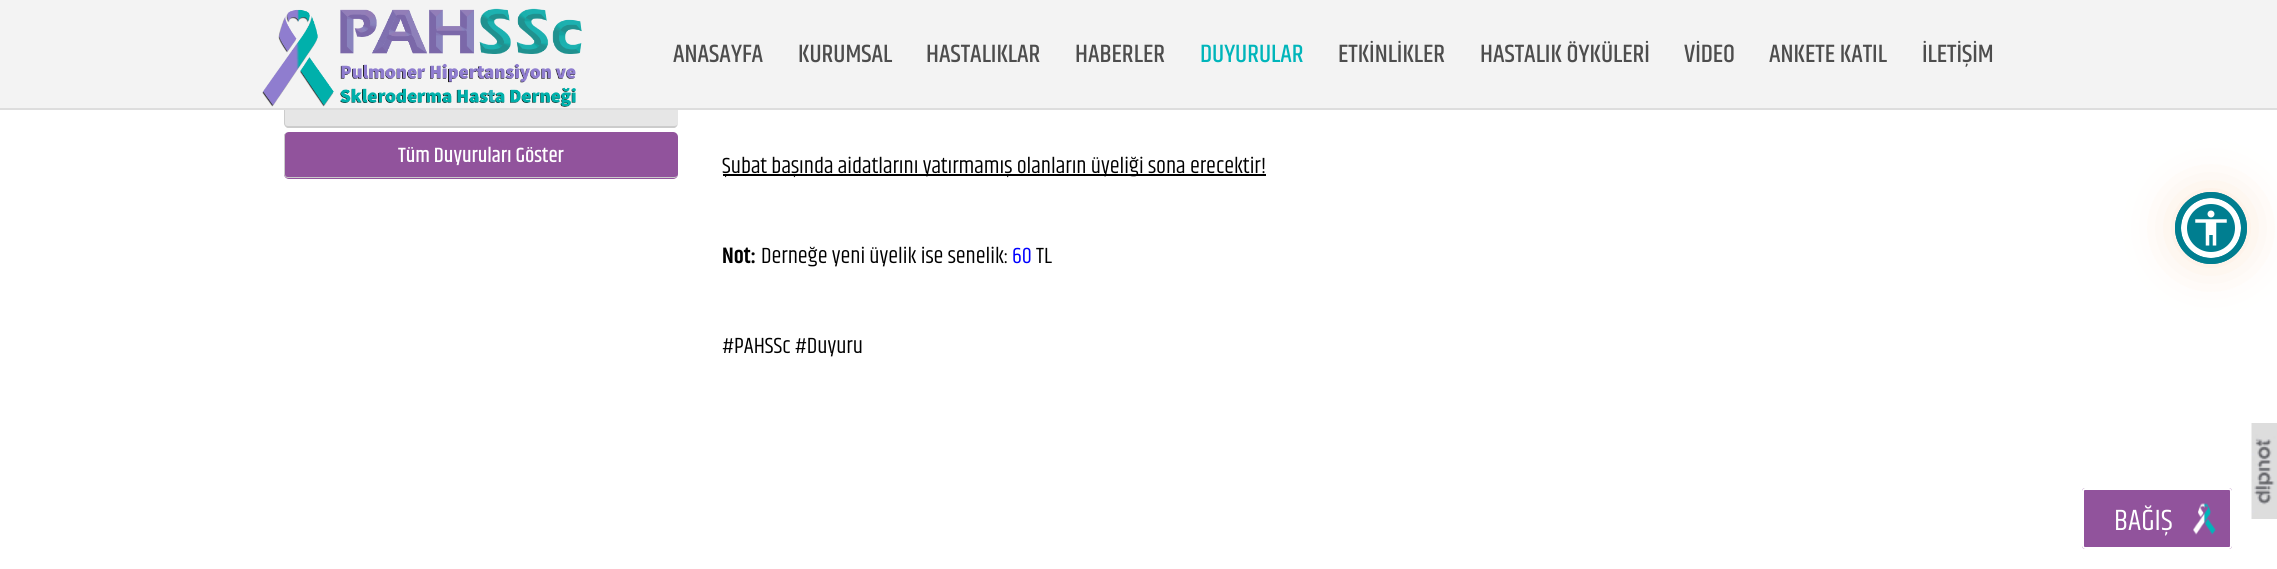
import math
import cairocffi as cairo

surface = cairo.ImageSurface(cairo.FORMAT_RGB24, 2277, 569)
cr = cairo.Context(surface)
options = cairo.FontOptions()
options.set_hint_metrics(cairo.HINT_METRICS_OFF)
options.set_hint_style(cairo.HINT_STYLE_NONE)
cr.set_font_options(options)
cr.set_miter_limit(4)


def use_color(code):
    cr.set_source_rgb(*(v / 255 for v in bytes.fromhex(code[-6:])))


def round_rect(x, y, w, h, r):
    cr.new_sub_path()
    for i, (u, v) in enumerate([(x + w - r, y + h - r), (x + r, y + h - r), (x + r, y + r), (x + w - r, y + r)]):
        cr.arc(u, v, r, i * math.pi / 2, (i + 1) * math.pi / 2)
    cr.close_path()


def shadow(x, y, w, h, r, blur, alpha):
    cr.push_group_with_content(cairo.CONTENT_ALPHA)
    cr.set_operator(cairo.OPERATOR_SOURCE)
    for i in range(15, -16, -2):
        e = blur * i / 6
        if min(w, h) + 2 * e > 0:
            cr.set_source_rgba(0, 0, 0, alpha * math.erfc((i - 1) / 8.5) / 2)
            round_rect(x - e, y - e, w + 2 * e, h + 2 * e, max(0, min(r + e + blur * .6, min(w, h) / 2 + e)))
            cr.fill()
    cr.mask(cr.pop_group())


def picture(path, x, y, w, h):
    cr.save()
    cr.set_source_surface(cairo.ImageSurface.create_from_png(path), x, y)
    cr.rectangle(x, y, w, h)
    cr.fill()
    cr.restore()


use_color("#ffffff")
cr.paint()
use_color("#e6e6e6")
round_rect(284, 59, 394, 69, 5)
cr.fill()
use_color("#cccccc")
cr.set_fill_rule(cairo.FILL_RULE_EVEN_ODD)
cr.new_path()
cr.move_to(288, 58)
cr.line_to(674, 58)
cr.curve_to(676, 58, 678, 61, 678, 63)
cr.line_to(678, 123)
cr.curve_to(678, 125, 676, 128, 674, 128)
cr.line_to(288, 128)
cr.curve_to(286, 128, 284, 125, 284, 123)
cr.line_to(284, 63)
cr.curve_to(284, 61, 286, 58, 288, 58)
cr.close_path()
cr.move_to(288, 58)
cr.line_to(674, 58)
cr.curve_to(676, 58, 678, 61, 678, 63)
cr.line_to(678, 123)
cr.curve_to(678, 125, 676, 126, 674, 126)
cr.line_to(288, 126)
cr.curve_to(286, 126, 285, 125, 285, 123)
cr.line_to(285, 63)
cr.curve_to(285, 61, 286, 58, 288, 58)
cr.close_path()
cr.fill()
use_color("#f3f3f3")
cr.rectangle(0, 0, 2277, 108)
cr.fill()
use_color("#dddddd")
cr.rectangle(0, 108, 2277, 2)
cr.fill()
picture("img1.png", 262, 8, 320, 99)
cr.select_font_face("Khand Medium")
cr.set_font_size(25.5)
use_color("#4d4d4d")
cr.move_to(673, 62)
cr.show_text("ANASAYFA")
cr.move_to(798, 62)
cr.show_text("KURUMSAL")
cr.move_to(926, 62)
cr.show_text("HASTALIKLAR")
cr.move_to(1075, 62)
cr.show_text("HABERLER")
use_color("#00b5ba")
cr.move_to(1200, 62)
cr.show_text("DUYURULAR")
use_color("#4d4d4d")
cr.move_to(1338, 62)
cr.show_text("ETKİNLİKLER")
cr.move_to(1480, 62)
cr.show_text("HASTALIK ÖYKÜLERİ")
cr.move_to(1684, 62)
cr.show_text("VİDEO")
cr.move_to(1769, 62)
cr.show_text("ANKETE KATIL")
cr.move_to(1922, 62)
cr.show_text("İLETİŞİM")
use_color("#91539c")
round_rect(284, 132, 394, 47, 5)
cr.fill()
use_color("#cccccc")
cr.new_path()
cr.move_to(288, 132)
cr.line_to(674, 132)
cr.curve_to(676, 132, 678, 134, 678, 136)
cr.line_to(678, 174)
cr.curve_to(678, 176, 676, 178, 674, 178)
cr.line_to(288, 178)
cr.curve_to(286, 178, 284, 176, 284, 174)
cr.line_to(284, 136)
cr.curve_to(284, 134, 286, 132, 288, 132)
cr.close_path()
cr.move_to(288, 132)
cr.line_to(674, 132)
cr.curve_to(676, 132, 678, 134, 678, 136)
cr.line_to(678, 174)
cr.curve_to(678, 176, 676, 177, 674, 177)
cr.line_to(288, 177)
cr.curve_to(286, 177, 285, 176, 285, 174)
cr.line_to(285, 136)
cr.curve_to(285, 134, 286, 132, 288, 132)
cr.close_path()
cr.fill()
cr.set_font_size(21)
use_color("#ffffff")
cr.move_to(398, 162)
cr.show_text("Tüm Duyuruları Göster")
use_color("#000000")
cr.rectangle(723, 174, 543, 2)
cr.fill()
cr.select_font_face("Khand")
cr.set_font_size(22.5)
cr.move_to(722, 173)
cr.show_text("Şubat başında aidatlarını yatırmamış olanların üyeliği sona erecektir!")
cr.select_font_face("Khand SemiBold")
cr.move_to(722, 263)
cr.show_text("Not:")
cr.select_font_face("Khand")
cr.move_to(761, 263)
cr.show_text("Derneğe yeni üyelik ise senelik:")
use_color("#0000ff")
cr.move_to(1012, 263)
cr.show_text("60")
use_color("#000000")
cr.move_to(1036, 263)
cr.show_text("TL")
cr.move_to(722, 353)
cr.show_text("#PAHSSc #Duyuru")
use_color("#91539c")
round_rect(2082, 488, 150, 61, 3)
cr.fill()
picture("img2.png", 2193, 503, 23, 32)
round_rect(2083, 489, 148, 59, 2)
use_color("#ffffff")
cr.stroke()
cr.set_font_size(30)
cr.move_to(2114, 530)
cr.show_text("BAĞIŞ")
picture("img3.png", 2251, 423, 26, 96)
use_color("#f4a259")
shadow(2175, 192, 72, 72, 36, 24, 0.25)
use_color("#007e90")
cr.arc(2211, 228, 36, 0, 2 * math.pi)
cr.fill()
cr.arc(2211, 228, 27, 0, 2 * math.pi)
use_color("#ffffff")
cr.set_line_width(6)
cr.stroke()
cr.arc(2211, 228, 33, 0, 2 * math.pi)
use_color("#007e90")
cr.stroke()
picture("img4.png", 2195, 210, 32, 36)
surface.write_to_png("result.png")
